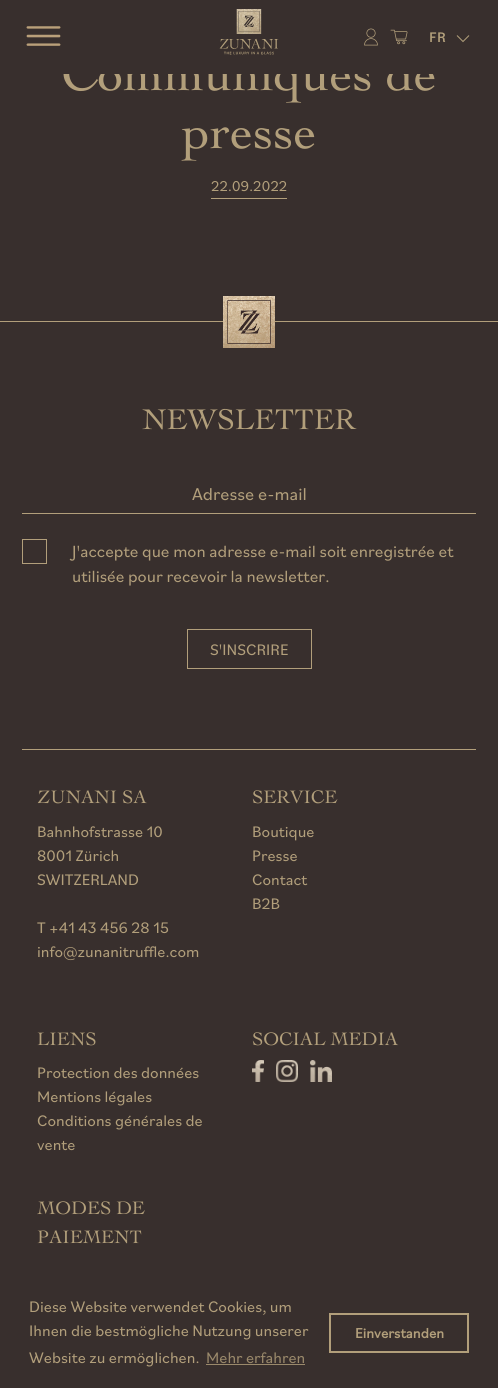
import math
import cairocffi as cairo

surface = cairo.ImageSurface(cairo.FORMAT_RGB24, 498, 1388)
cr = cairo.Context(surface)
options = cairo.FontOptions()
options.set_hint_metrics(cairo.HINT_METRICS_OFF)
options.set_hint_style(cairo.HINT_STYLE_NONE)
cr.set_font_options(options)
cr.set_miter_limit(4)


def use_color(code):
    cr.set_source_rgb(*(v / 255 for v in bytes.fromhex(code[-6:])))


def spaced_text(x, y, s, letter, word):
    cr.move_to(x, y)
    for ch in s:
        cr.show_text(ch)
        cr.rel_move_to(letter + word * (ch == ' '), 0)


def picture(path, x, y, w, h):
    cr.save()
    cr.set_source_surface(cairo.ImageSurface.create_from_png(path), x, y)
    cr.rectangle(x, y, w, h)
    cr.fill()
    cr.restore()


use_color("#382f2d")
cr.paint()
cr.select_font_face("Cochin")
cr.set_font_size(52)
use_color("#b29f7b")
cr.move_to(61, 90)
cr.show_text("Communiqués de")
use_color("#382f2d")
cr.rectangle(63, 53, 370, 21)
cr.fill()
picture("img1.png", 26, 26, 35, 20)
picture("img2.png", 219, 9, 60, 46)
picture("img3.png", 364, 28, 14, 18)
picture("img4.png", 390, 29, 18, 16)
cr.select_font_face("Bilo", cairo.FONT_SLANT_NORMAL, cairo.FONT_WEIGHT_BOLD)
cr.set_font_size(14)
use_color("#b29f7b")
spaced_text(429, 42, "FR", 1, 0)
cr.new_path()
cr.move_to(457, 35.5)
cr.line_to(463, 41.5)
cr.line_to(469, 35.5)
cr.set_line_width(1)
cr.stroke()
cr.select_font_face("Cochin")
cr.set_font_size(52)
cr.move_to(182, 148)
cr.show_text("presse")
cr.rectangle(211, 198, 76, 1)
cr.fill()
cr.select_font_face("Bilo")
cr.set_font_size(15)
cr.move_to(211, 191)
cr.show_text("22.09.2022")
cr.rectangle(0, 321, 498, 1)
cr.fill()
picture("img5.png", 223, 296, 52, 52)
cr.select_font_face("Cochin")
cr.set_font_size(30)
cr.move_to(142, 429)
cr.show_text("NEWSLETTER")
cr.rectangle(22, 513, 454, 1)
cr.fill()
cr.select_font_face("Bilo")
cr.set_font_size(18)
cr.move_to(192, 500)
cr.show_text("Adresse e-mail")
cr.rectangle(22.5, 539.5, 24, 24)
cr.stroke()
cr.set_font_size(17)
cr.move_to(72, 557)
cr.show_text("J'accepte que mon adresse e-mail soit enregistrée et")
cr.move_to(72, 582)
cr.show_text("utilisée pour recevoir la newsletter.")
cr.rectangle(187.5, 629.5, 124, 39)
cr.stroke()
cr.set_font_size(16)
cr.move_to(210, 655)
cr.show_text("S'INSCRIRE")
cr.rectangle(22, 749, 454, 1)
cr.fill()
cr.select_font_face("Cochin")
cr.set_font_size(19)
cr.move_to(37, 803)
cr.show_text("ZUNANI SA")
cr.select_font_face("Bilo")
cr.set_font_size(16)
cr.move_to(37, 837)
cr.show_text("Bahnhofstrasse 10")
cr.move_to(37, 861)
cr.show_text("8001 Zürich")
cr.move_to(37, 885)
cr.show_text("SWITZERLAND")
cr.move_to(37, 933)
cr.show_text("T +41 43 456 28 15")
cr.move_to(37, 957)
cr.show_text("info@zunanitruffle.com")
cr.select_font_face("Cochin")
cr.set_font_size(19)
cr.move_to(252, 803)
cr.show_text("SERVICE")
cr.select_font_face("Bilo")
cr.set_font_size(16)
cr.move_to(252, 837)
cr.show_text("Boutique")
cr.move_to(252, 861)
cr.show_text("Presse")
cr.move_to(252, 885)
cr.show_text("Contact")
cr.move_to(252, 909)
cr.show_text("B2B")
cr.select_font_face("Cochin")
cr.set_font_size(19)
cr.move_to(37, 1045)
cr.show_text("LIENS")
cr.select_font_face("Bilo")
cr.set_font_size(16)
cr.move_to(37, 1078)
cr.show_text("Protection des données")
cr.move_to(37, 1102)
cr.show_text("Mentions légales")
cr.move_to(37, 1126)
cr.show_text("Conditions générales de")
cr.move_to(37, 1150)
cr.show_text("vente")
cr.select_font_face("Cochin")
cr.set_font_size(19)
cr.move_to(252, 1045)
cr.show_text("SOCIAL MEDIA")
picture("img6.png", 252, 1060, 12, 22)
picture("img7.png", 276, 1060, 22, 22)
picture("img8.png", 310, 1060, 22, 22)
cr.move_to(37, 1214)
cr.show_text("MODES DE")
cr.move_to(37, 1243)
cr.show_text("PAIEMENT")
cr.select_font_face("Bilo")
cr.set_font_size(16)
cr.move_to(29, 1312)
cr.show_text("Diese Website verwendet Cookies, um")
cr.move_to(29, 1336)
cr.show_text("Ihnen die bestmögliche Nutzung unserer")
cr.move_to(29, 1363)
cr.show_text("Website zu ermöglichen.")
use_color("#9a896b")
cr.move_to(206, 1363)
cr.show_text("Mehr erfahren")
cr.rectangle(206, 1364, 99, 1)
cr.fill()
cr.rectangle(330, 1314, 138, 38)
use_color("#b29f7b")
cr.set_line_width(2)
cr.stroke()
cr.select_font_face("Bilo", cairo.FONT_SLANT_NORMAL, cairo.FONT_WEIGHT_BOLD)
cr.set_font_size(14.5)
cr.move_to(355, 1338)
cr.show_text("Einverstanden")
surface.write_to_png("result.png")
